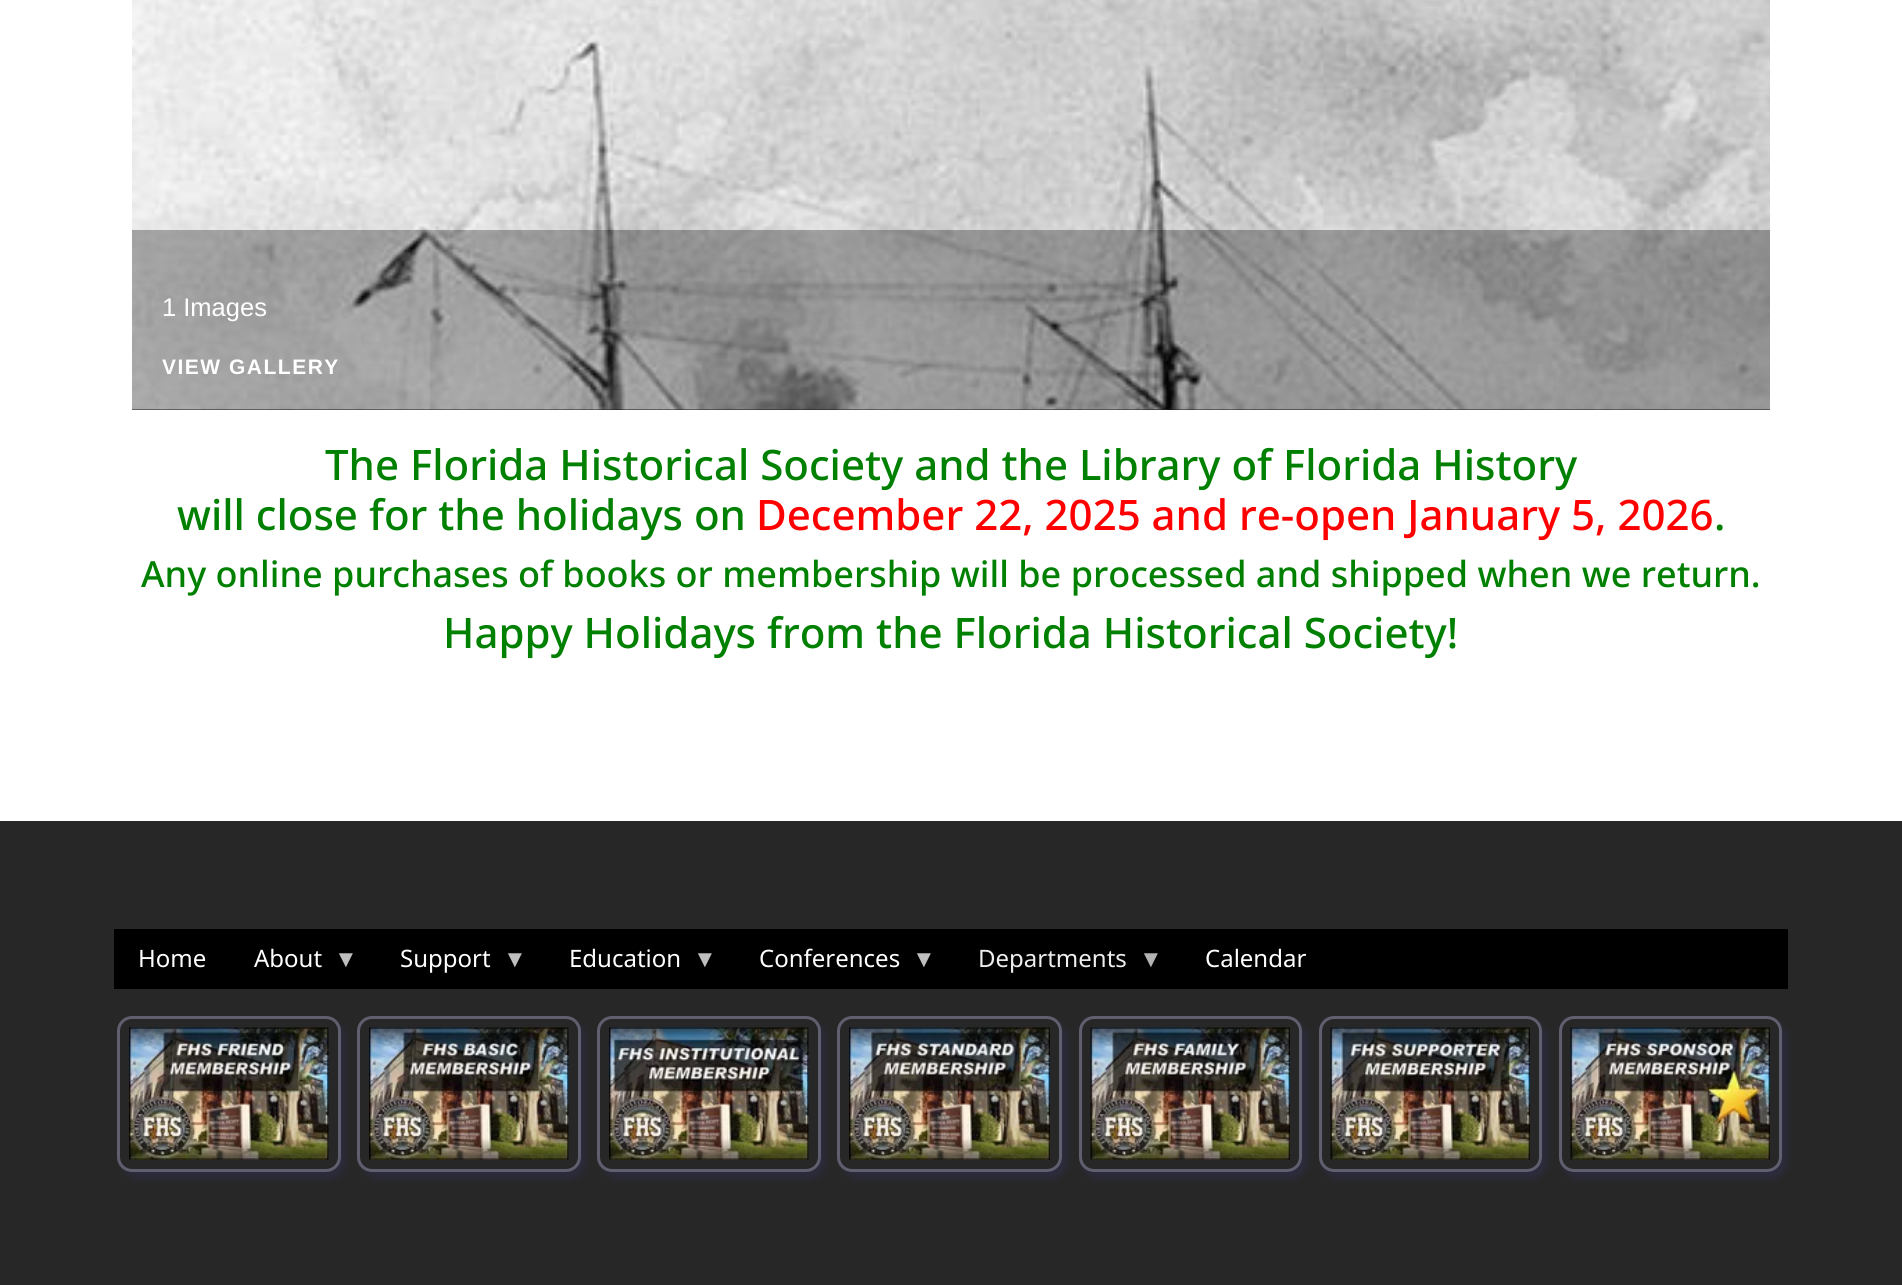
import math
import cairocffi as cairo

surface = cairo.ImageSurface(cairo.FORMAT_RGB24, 1902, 1285)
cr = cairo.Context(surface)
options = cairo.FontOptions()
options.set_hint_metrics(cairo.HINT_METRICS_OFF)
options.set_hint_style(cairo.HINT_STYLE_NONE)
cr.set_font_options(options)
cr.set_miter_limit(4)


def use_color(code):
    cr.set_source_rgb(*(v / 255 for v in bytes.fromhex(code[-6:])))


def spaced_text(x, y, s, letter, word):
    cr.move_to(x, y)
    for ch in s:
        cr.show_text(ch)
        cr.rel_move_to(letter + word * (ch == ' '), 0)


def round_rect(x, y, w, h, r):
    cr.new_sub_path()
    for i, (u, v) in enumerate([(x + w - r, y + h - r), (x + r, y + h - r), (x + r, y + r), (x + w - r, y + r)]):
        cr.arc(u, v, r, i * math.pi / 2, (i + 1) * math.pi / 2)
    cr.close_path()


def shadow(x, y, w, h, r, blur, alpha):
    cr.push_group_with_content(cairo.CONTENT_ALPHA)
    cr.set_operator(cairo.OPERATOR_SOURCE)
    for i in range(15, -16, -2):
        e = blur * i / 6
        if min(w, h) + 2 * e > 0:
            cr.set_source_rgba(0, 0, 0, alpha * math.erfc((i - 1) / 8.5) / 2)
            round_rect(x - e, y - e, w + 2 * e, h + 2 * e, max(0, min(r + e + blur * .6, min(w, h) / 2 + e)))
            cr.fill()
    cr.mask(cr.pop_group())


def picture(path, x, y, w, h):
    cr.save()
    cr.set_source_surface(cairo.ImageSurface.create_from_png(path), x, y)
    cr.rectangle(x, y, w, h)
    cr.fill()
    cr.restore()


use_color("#ffffff")
cr.paint()
use_color("#222222")
cr.rectangle(132, 409, 1638, 1)
cr.fill()
picture("img1.png", 132, 0, 1638, 410)
cr.set_source_rgba(0, 0, 0, 0.3)
cr.rectangle(132, 230, 1638, 180)
cr.fill()
cr.select_font_face("Liberation Sans")
cr.set_font_size(25.5)
use_color("#ffffff")
cr.move_to(162, 316)
cr.show_text("1 Images")
cr.select_font_face("Liberation Sans", cairo.FONT_SLANT_NORMAL, cairo.FONT_WEIGHT_BOLD)
cr.set_font_size(21)
spaced_text(162, 374, "VIEW GALLERY", 1.5, 0)
cr.select_font_face("Noto Sans Medium")
cr.set_font_size(42)
use_color("#008000")
cr.move_to(325, 480)
cr.show_text("The Florida Historical Society and the Library of Florida History")
cr.move_to(177, 530)
cr.show_text("will close for the holidays on")
use_color("#ff0000")
cr.move_to(756, 530)
cr.show_text("December 22, 2025 and re-open January 5, 2026")
use_color("#008000")
cr.move_to(1714, 530)
cr.show_text(".")
cr.set_font_size(36)
cr.move_to(141, 587)
cr.show_text("Any online purchases of books or membership will be processed and shipped when we return.")
cr.set_font_size(42)
cr.move_to(443, 648)
cr.show_text("Happy Holidays from the Florida Historical Society!")
use_color("#272727")
cr.rectangle(0, 821, 1902, 464)
cr.fill()
use_color("#000000")
cr.rectangle(114, 929, 1674, 60)
cr.fill()
cr.select_font_face("Noto Sans")
cr.set_font_size(24)
use_color("#ffffff")
cr.move_to(138, 967)
cr.show_text("Home")
cr.move_to(254, 967)
cr.show_text("About")
cr.select_font_face("Liberation Sans")
use_color("#bfbfbf")
cr.move_to(334, 967)
cr.show_text("▼")
cr.select_font_face("Noto Sans")
use_color("#ffffff")
cr.move_to(400, 967)
cr.show_text("Support")
cr.select_font_face("Liberation Sans")
use_color("#bfbfbf")
cr.move_to(503, 967)
cr.show_text("▼")
cr.select_font_face("Noto Sans")
use_color("#ffffff")
cr.move_to(569, 967)
cr.show_text("Education")
cr.select_font_face("Liberation Sans")
use_color("#bfbfbf")
cr.move_to(693, 967)
cr.show_text("▼")
cr.select_font_face("Noto Sans")
use_color("#ffffff")
cr.move_to(759, 967)
cr.show_text("Conferences")
cr.select_font_face("Liberation Sans")
use_color("#bfbfbf")
cr.move_to(912, 967)
cr.show_text("▼")
cr.select_font_face("Noto Sans")
use_color("#eeeeee")
cr.move_to(978, 967)
cr.show_text("Departments")
cr.select_font_face("Liberation Sans")
use_color("#b3b3b3")
cr.move_to(1139, 967)
cr.show_text("▼")
cr.select_font_face("Noto Sans")
use_color("#ffffff")
cr.move_to(1205, 967)
cr.show_text("Calendar")
cr.save()
cr.set_fill_rule(cairo.FILL_RULE_EVEN_ODD)
cr.new_path()
cr.move_to(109, 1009)
cr.line_to(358, 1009)
cr.line_to(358, 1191)
cr.line_to(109, 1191)
cr.close_path()
cr.move_to(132, 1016)
cr.line_to(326, 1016)
cr.curve_to(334.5, 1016, 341, 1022.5, 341, 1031)
cr.line_to(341, 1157)
cr.curve_to(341, 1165.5, 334.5, 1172, 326, 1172)
cr.line_to(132, 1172)
cr.curve_to(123.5, 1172, 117, 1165.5, 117, 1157)
cr.line_to(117, 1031)
cr.curve_to(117, 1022.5, 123.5, 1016, 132, 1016)
cr.close_path()
cr.clip()
use_color("#323264")
shadow(122, 1022, 223, 156, 15, 4, 0.4)
cr.restore()
round_rect(118.5, 1017.5, 221, 153, 13.5)
cr.set_source_rgba(0.706, 0.706, 0.863, 0.4)
cr.set_line_width(3)
cr.stroke()
picture("img2.png", 129, 1027, 200, 133)
cr.save()
cr.set_fill_rule(cairo.FILL_RULE_EVEN_ODD)
cr.new_path()
cr.move_to(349, 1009)
cr.line_to(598, 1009)
cr.line_to(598, 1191)
cr.line_to(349, 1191)
cr.close_path()
cr.move_to(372, 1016)
cr.line_to(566, 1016)
cr.curve_to(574.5, 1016, 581, 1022.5, 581, 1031)
cr.line_to(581, 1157)
cr.curve_to(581, 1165.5, 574.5, 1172, 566, 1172)
cr.line_to(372, 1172)
cr.curve_to(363.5, 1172, 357, 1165.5, 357, 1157)
cr.line_to(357, 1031)
cr.curve_to(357, 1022.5, 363.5, 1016, 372, 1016)
cr.close_path()
cr.clip()
use_color("#323264")
shadow(362, 1022, 223, 156, 15, 4, 0.4)
cr.restore()
round_rect(358.5, 1017.5, 221, 153, 13.5)
cr.stroke()
picture("img3.png", 369, 1027, 200, 133)
cr.save()
cr.set_fill_rule(cairo.FILL_RULE_EVEN_ODD)
cr.new_path()
cr.move_to(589, 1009)
cr.line_to(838, 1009)
cr.line_to(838, 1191)
cr.line_to(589, 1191)
cr.close_path()
cr.move_to(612, 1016)
cr.line_to(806, 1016)
cr.curve_to(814.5, 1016, 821, 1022.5, 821, 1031)
cr.line_to(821, 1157)
cr.curve_to(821, 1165.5, 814.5, 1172, 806, 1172)
cr.line_to(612, 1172)
cr.curve_to(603.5, 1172, 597, 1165.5, 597, 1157)
cr.line_to(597, 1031)
cr.curve_to(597, 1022.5, 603.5, 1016, 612, 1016)
cr.close_path()
cr.clip()
use_color("#323264")
shadow(602, 1022, 223, 156, 15, 4, 0.4)
cr.restore()
round_rect(598.5, 1017.5, 221, 153, 13.5)
cr.stroke()
picture("img4.png", 609, 1027, 200, 133)
cr.save()
cr.set_fill_rule(cairo.FILL_RULE_EVEN_ODD)
cr.new_path()
cr.move_to(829, 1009)
cr.line_to(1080, 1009)
cr.line_to(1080, 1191)
cr.line_to(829, 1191)
cr.close_path()
cr.move_to(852, 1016)
cr.line_to(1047, 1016)
cr.curve_to(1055.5, 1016, 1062, 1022.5, 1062, 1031)
cr.line_to(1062, 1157)
cr.curve_to(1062, 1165.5, 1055.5, 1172, 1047, 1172)
cr.line_to(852, 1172)
cr.curve_to(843.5, 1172, 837, 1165.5, 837, 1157)
cr.line_to(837, 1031)
cr.curve_to(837, 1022.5, 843.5, 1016, 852, 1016)
cr.close_path()
cr.clip()
use_color("#323264")
shadow(842, 1022, 225, 156, 15, 4, 0.4)
cr.restore()
round_rect(838.5, 1017.5, 222, 153, 13.5)
cr.stroke()
picture("img5.png", 849, 1027, 201, 133)
cr.save()
cr.set_fill_rule(cairo.FILL_RULE_EVEN_ODD)
cr.new_path()
cr.move_to(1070, 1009)
cr.line_to(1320, 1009)
cr.line_to(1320, 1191)
cr.line_to(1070, 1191)
cr.close_path()
cr.move_to(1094, 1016)
cr.line_to(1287, 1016)
cr.curve_to(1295.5, 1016, 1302, 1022.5, 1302, 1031)
cr.line_to(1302, 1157)
cr.curve_to(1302, 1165.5, 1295.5, 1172, 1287, 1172)
cr.line_to(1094, 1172)
cr.curve_to(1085.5, 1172, 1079, 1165.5, 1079, 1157)
cr.line_to(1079, 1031)
cr.curve_to(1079, 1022.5, 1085.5, 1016, 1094, 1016)
cr.close_path()
cr.clip()
use_color("#323264")
shadow(1083, 1022, 224, 156, 15, 4, 0.4)
cr.restore()
round_rect(1080.5, 1017.5, 220, 153, 13.5)
cr.stroke()
picture("img6.png", 1090, 1027, 200, 133)
cr.save()
cr.set_fill_rule(cairo.FILL_RULE_EVEN_ODD)
cr.new_path()
cr.move_to(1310, 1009)
cr.line_to(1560, 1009)
cr.line_to(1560, 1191)
cr.line_to(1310, 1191)
cr.close_path()
cr.move_to(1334, 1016)
cr.line_to(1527, 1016)
cr.curve_to(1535.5, 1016, 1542, 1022.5, 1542, 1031)
cr.line_to(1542, 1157)
cr.curve_to(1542, 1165.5, 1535.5, 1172, 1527, 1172)
cr.line_to(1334, 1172)
cr.curve_to(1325.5, 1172, 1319, 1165.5, 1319, 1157)
cr.line_to(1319, 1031)
cr.curve_to(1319, 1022.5, 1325.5, 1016, 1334, 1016)
cr.close_path()
cr.clip()
use_color("#323264")
shadow(1323, 1022, 224, 156, 15, 4, 0.4)
cr.restore()
round_rect(1320.5, 1017.5, 220, 153, 13.5)
cr.stroke()
picture("img7.png", 1330, 1027, 200, 133)
cr.save()
cr.set_fill_rule(cairo.FILL_RULE_EVEN_ODD)
cr.new_path()
cr.move_to(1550, 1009)
cr.line_to(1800, 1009)
cr.line_to(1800, 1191)
cr.line_to(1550, 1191)
cr.close_path()
cr.move_to(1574, 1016)
cr.line_to(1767, 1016)
cr.curve_to(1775.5, 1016, 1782, 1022.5, 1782, 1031)
cr.line_to(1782, 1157)
cr.curve_to(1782, 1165.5, 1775.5, 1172, 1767, 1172)
cr.line_to(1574, 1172)
cr.curve_to(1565.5, 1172, 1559, 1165.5, 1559, 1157)
cr.line_to(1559, 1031)
cr.curve_to(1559, 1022.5, 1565.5, 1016, 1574, 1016)
cr.close_path()
cr.clip()
use_color("#323264")
shadow(1563, 1022, 224, 156, 15, 4, 0.4)
cr.restore()
round_rect(1560.5, 1017.5, 220, 153, 13.5)
cr.stroke()
picture("img8.png", 1570, 1027, 200, 133)
surface.write_to_png("result.png")
